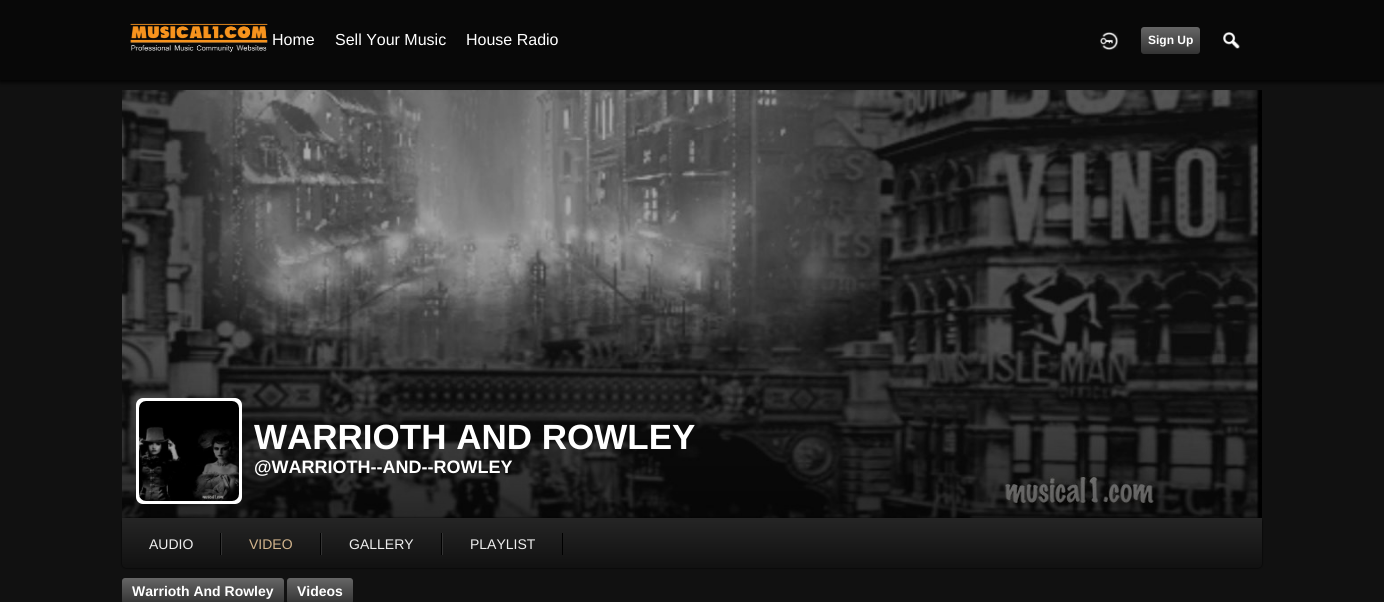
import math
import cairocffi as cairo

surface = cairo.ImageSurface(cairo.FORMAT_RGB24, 1384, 602)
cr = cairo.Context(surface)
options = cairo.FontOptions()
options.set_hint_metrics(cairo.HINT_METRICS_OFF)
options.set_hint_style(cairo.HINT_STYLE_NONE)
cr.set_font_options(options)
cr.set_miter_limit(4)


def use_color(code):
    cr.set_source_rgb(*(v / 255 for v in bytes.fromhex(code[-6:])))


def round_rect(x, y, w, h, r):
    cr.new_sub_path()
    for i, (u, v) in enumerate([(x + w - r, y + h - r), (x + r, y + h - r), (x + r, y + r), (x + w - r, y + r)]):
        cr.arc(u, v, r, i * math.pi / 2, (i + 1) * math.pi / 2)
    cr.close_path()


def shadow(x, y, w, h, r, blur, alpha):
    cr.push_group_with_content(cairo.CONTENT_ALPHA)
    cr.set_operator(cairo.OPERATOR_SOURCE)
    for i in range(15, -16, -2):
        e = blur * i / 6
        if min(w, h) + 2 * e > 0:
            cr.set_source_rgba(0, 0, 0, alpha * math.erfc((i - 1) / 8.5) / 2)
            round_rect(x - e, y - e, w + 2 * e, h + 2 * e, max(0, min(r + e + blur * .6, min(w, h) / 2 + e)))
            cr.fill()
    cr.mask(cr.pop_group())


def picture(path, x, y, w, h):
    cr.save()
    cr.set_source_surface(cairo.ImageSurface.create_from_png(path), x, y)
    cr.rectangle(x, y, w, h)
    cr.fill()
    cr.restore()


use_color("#111111")
cr.paint()
picture("img4.png", 122, 90, 1140, 428)
use_color("#000000")
shadow(0, 2, 1384, 80, 0, 2.5, 1)
use_color("#080808")
cr.rectangle(0, 0, 1384, 80)
cr.fill()
picture("img1.png", 130, 23, 138, 30)
cr.select_font_face("Liberation Sans")
cr.set_font_size(16)
use_color("#ffffff")
cr.move_to(272, 45)
cr.show_text("Home")
cr.move_to(335, 45)
cr.show_text("Sell Your Music")
cr.move_to(466, 45)
cr.show_text("House Radio")
picture("img2.png", 1100, 32, 19, 18)
gradient = cairo.LinearGradient(1171, 27, 1171, 54)
gradient.add_color_stop_rgba(0, 0.4, 0.4, 0.4, 1)
gradient.add_color_stop_rgba(1, 0.2, 0.2, 0.2, 1)
cr.set_source(gradient)
round_rect(1141, 27, 59, 27, 3)
cr.fill()
cr.select_font_face("Liberation Sans", cairo.FONT_SLANT_NORMAL, cairo.FONT_WEIGHT_BOLD)
cr.set_font_size(12)
use_color("#ffffff")
cr.move_to(1148, 44)
cr.show_text("Sign Up")
picture("img3.png", 1223, 32, 17, 17)
round_rect(136, 398, 106, 106, 7)
cr.fill()
picture("img5.png", 139, 401, 100, 100)
cr.set_font_size(35)
cr.move_to(254, 449)
cr.show_text("WARRIOTH AND ROWLEY")
cr.set_font_size(18)
cr.move_to(254, 473)
cr.show_text("@WARRIOTH--AND--ROWLEY")
use_color("#000000")
shadow(122, 518, 1140, 50, 4, 1, 1)
gradient = cairo.LinearGradient(692, 518, 692, 568)
gradient.add_color_stop_rgba(0, 0.145, 0.145, 0.145, 1)
gradient.add_color_stop_rgba(1, 0.067, 0.067, 0.067, 1)
cr.set_source(gradient)
cr.new_path()
cr.move_to(122, 518)
cr.line_to(1262, 518)
cr.line_to(1262, 564)
cr.curve_to(1262, 566, 1260, 568, 1258, 568)
cr.line_to(126, 568)
cr.curve_to(124, 568, 122, 566, 122, 564)
cr.close_path()
cr.fill()
use_color("#000000")
cr.rectangle(220, 533, 1, 22)
cr.fill()
cr.select_font_face("Liberation Sans")
cr.set_font_size(14)
use_color("#eeeeee")
cr.move_to(149, 549)
cr.show_text("AUDIO")
use_color("#000000")
cr.rectangle(320, 533, 1, 22)
cr.fill()
use_color("#333333")
cr.rectangle(221, 533, 1, 22)
cr.fill()
use_color("#d2b48c")
cr.move_to(249, 549)
cr.show_text("VIDEO")
use_color("#000000")
cr.rectangle(441, 533, 1, 22)
cr.fill()
use_color("#333333")
cr.rectangle(321, 533, 1, 22)
cr.fill()
use_color("#eeeeee")
cr.move_to(349, 549)
cr.show_text("GALLERY")
use_color("#000000")
cr.rectangle(562, 533, 1, 22)
cr.fill()
use_color("#333333")
cr.rectangle(442, 533, 1, 22)
cr.fill()
use_color("#eeeeee")
cr.move_to(470, 549)
cr.show_text("PLAYLIST")
gradient = cairo.LinearGradient(203, 578, 203, 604)
gradient.add_color_stop_rgba(0, 0.4, 0.4, 0.4, 1)
gradient.add_color_stop_rgba(1, 0.2, 0.2, 0.2, 1)
cr.set_source(gradient)
round_rect(122, 578, 162, 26, 3)
cr.fill()
cr.select_font_face("Liberation Sans", cairo.FONT_SLANT_NORMAL, cairo.FONT_WEIGHT_BOLD)
use_color("#ffffff")
cr.move_to(132, 596)
cr.show_text("Warrioth And Rowley")
gradient = cairo.LinearGradient(320, 578, 320, 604)
gradient.add_color_stop_rgba(0, 0.4, 0.4, 0.4, 1)
gradient.add_color_stop_rgba(1, 0.2, 0.2, 0.2, 1)
cr.set_source(gradient)
round_rect(287, 578, 66, 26, 3)
cr.fill()
use_color("#ffffff")
cr.move_to(297, 596)
cr.show_text("Videos")
surface.write_to_png("result.png")
